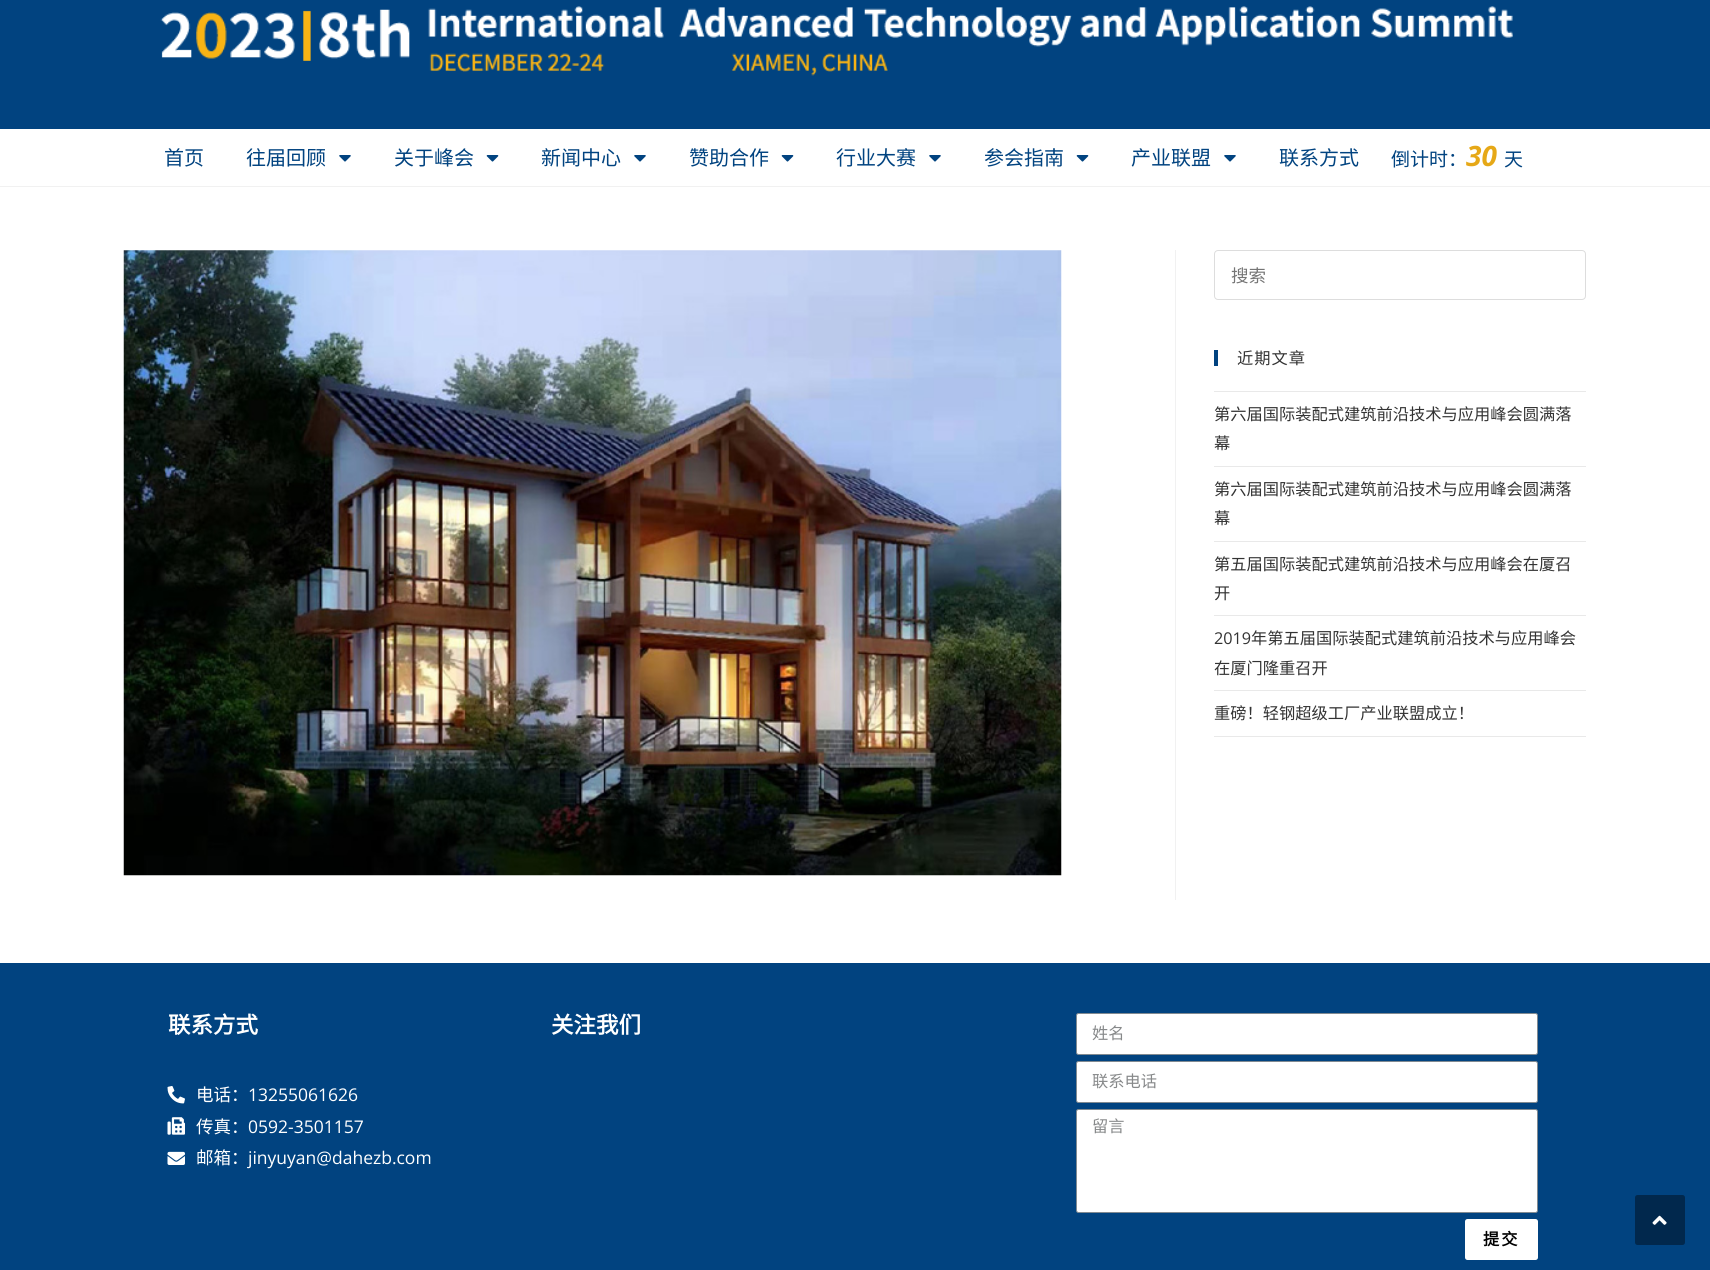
import math
import cairocffi as cairo

surface = cairo.ImageSurface(cairo.FORMAT_RGB24, 1710, 1270)
cr = cairo.Context(surface)
options = cairo.FontOptions()
options.set_hint_metrics(cairo.HINT_METRICS_OFF)
options.set_hint_style(cairo.HINT_STYLE_NONE)
cr.set_font_options(options)
cr.set_miter_limit(4)


def use_color(code):
    cr.set_source_rgb(*(v / 255 for v in bytes.fromhex(code[-6:])))


def spaced_text(x, y, s, letter, word):
    cr.move_to(x, y)
    for ch in s:
        cr.show_text(ch)
        cr.rel_move_to(letter + word * (ch == ' '), 0)


def round_rect(x, y, w, h, r):
    cr.new_sub_path()
    for i, (u, v) in enumerate([(x + w - r, y + h - r), (x + r, y + h - r), (x + r, y + r), (x + w - r, y + r)]):
        cr.arc(u, v, r, i * math.pi / 2, (i + 1) * math.pi / 2)
    cr.close_path()


def picture(path, x, y, w, h):
    cr.save()
    cr.set_source_surface(cairo.ImageSurface.create_from_png(path), x, y)
    cr.rectangle(x, y, w, h)
    cr.fill()
    cr.restore()


use_color("#ffffff")
cr.paint()
use_color("#f1f1f1")
cr.rectangle(0, 186, 1710, 1)
cr.fill()
use_color("#014380")
cr.rectangle(0, 0, 1710, 129)
cr.fill()
picture("img1.png", 160, 6, 1353, 70)
cr.select_font_face("Noto Sans CJK SC")
cr.set_font_size(20)
cr.move_to(164, 165)
cr.show_text("首页")
cr.move_to(246, 165)
cr.show_text("往届回顾")
picture("img2.png", 339, 155, 12, 7)
cr.move_to(394, 165)
cr.show_text("关于峰会")
picture("img3.png", 486, 155, 13, 7)
cr.move_to(541, 165)
cr.show_text("新闻中心")
picture("img2.png", 634, 155, 12, 7)
cr.move_to(689, 165)
cr.show_text("赞助合作")
picture("img3.png", 781, 155, 13, 7)
cr.move_to(836, 165)
cr.show_text("行业大赛")
picture("img2.png", 929, 155, 12, 7)
cr.move_to(984, 165)
cr.show_text("参会指南")
picture("img3.png", 1076, 155, 13, 7)
cr.move_to(1131, 165)
cr.show_text("产业联盟")
picture("img2.png", 1224, 155, 12, 7)
cr.move_to(1279, 165)
cr.show_text("联系方式")
cr.set_font_size(19)
cr.move_to(1391, 166)
cr.show_text("倒计时：")
cr.select_font_face("Open Sans", cairo.FONT_SLANT_ITALIC, cairo.FONT_WEIGHT_BOLD)
cr.set_font_size(28)
use_color("#e6a817")
cr.move_to(1466, 166)
cr.show_text("30")
cr.select_font_face("Noto Sans CJK SC")
cr.set_font_size(19)
use_color("#014380")
cr.move_to(1504, 166)
cr.show_text("天")
use_color("#f1f1f1")
cr.rectangle(1175, 250, 1, 650)
cr.fill()
picture("img4.png", 123, 250, 939, 626)
round_rect(1214.5, 250.5, 371, 49, 3.5)
use_color("#dddddd")
cr.set_line_width(1)
cr.stroke()
cr.set_font_size(17.5)
use_color("#757575")
cr.move_to(1231, 282)
cr.show_text("搜索")
use_color("#014380")
cr.rectangle(1214, 350, 4, 16)
cr.fill()
cr.set_font_size(16.25)
use_color("#333333")
spaced_text(1237, 364, "近期文章", 1, 0)
use_color("#e9e9e9")
cr.rectangle(1214, 391, 372, 1)
cr.fill()
cr.rectangle(1214, 466, 372, 1)
cr.fill()
use_color("#333333")
cr.move_to(1214, 420)
cr.show_text("第六届国际装配式建筑前沿技术与应用峰会圆满落")
cr.move_to(1214, 449)
cr.show_text("幕")
use_color("#e9e9e9")
cr.rectangle(1214, 541, 372, 1)
cr.fill()
use_color("#333333")
cr.move_to(1214, 495)
cr.show_text("第六届国际装配式建筑前沿技术与应用峰会圆满落")
cr.move_to(1214, 524)
cr.show_text("幕")
use_color("#e9e9e9")
cr.rectangle(1214, 615, 372, 1)
cr.fill()
use_color("#333333")
cr.move_to(1214, 570)
cr.show_text("第五届国际装配式建筑前沿技术与应用峰会在厦召")
cr.move_to(1214, 599)
cr.show_text("开")
use_color("#e9e9e9")
cr.rectangle(1214, 690, 372, 1)
cr.fill()
cr.select_font_face("Open Sans")
use_color("#333333")
cr.move_to(1214, 644)
cr.show_text("2019")
cr.select_font_face("Noto Sans CJK SC")
cr.move_to(1251, 644)
cr.show_text("年第五届国际装配式建筑前沿技术与应用峰会")
cr.move_to(1214, 674)
cr.show_text("在厦门隆重召开")
use_color("#e9e9e9")
cr.rectangle(1214, 736, 372, 1)
cr.fill()
use_color("#333333")
cr.move_to(1214, 719)
cr.show_text("重磅！轻钢超级工厂产业联盟成立！")
use_color("#014380")
cr.rectangle(0, 963, 1710, 307)
cr.fill()
cr.select_font_face("Noto Sans CJK SC", cairo.FONT_SLANT_NORMAL, cairo.FONT_WEIGHT_BOLD)
cr.set_font_size(22.5)
use_color("#ffffff")
cr.move_to(168, 1033)
cr.show_text("联系方式")
picture("img5.png", 167, 1086, 18, 18)
cr.select_font_face("Noto Sans CJK SC")
cr.set_font_size(17.5)
cr.move_to(196, 1101)
cr.show_text("电话：")
cr.select_font_face("Open Sans")
cr.move_to(248, 1101)
cr.show_text("13255061626")
picture("img6.png", 167, 1117, 18, 18)
cr.select_font_face("Noto Sans CJK SC")
cr.move_to(196, 1133)
cr.show_text("传真：")
cr.select_font_face("Open Sans")
cr.move_to(248, 1133)
cr.show_text("0592-3501157")
picture("img7.png", 167, 1151, 18, 14)
cr.select_font_face("Noto Sans CJK SC")
cr.move_to(196, 1164)
cr.show_text("邮箱：")
cr.select_font_face("Open Sans")
cr.move_to(248, 1164)
cr.show_text("jinyuyan@dahezb.com")
cr.select_font_face("Noto Sans CJK SC", cairo.FONT_SLANT_NORMAL, cairo.FONT_WEIGHT_BOLD)
cr.set_font_size(22.5)
cr.move_to(551, 1033)
cr.show_text("关注我们")
round_rect(1076.5, 1013.5, 461, 41, 2)
cr.fill_preserve()
use_color("#818a91")
cr.stroke()
cr.select_font_face("Noto Sans CJK SC")
cr.set_font_size(16.25)
use_color("#87898a")
cr.move_to(1092, 1039)
cr.show_text("姓名")
use_color("#ffffff")
round_rect(1076.5, 1061.5, 461, 41, 2)
cr.fill_preserve()
use_color("#818a91")
cr.stroke()
use_color("#87898a")
cr.move_to(1092, 1087)
cr.show_text("联系电话")
use_color("#ffffff")
round_rect(1076.5, 1109.5, 461, 103, 2)
cr.fill_preserve()
use_color("#818a91")
cr.stroke()
use_color("#87898a")
cr.move_to(1092, 1132)
cr.show_text("留言")
use_color("#ffffff")
round_rect(1465, 1219, 73, 41, 2.5)
cr.fill()
cr.select_font_face("Noto Sans CJK SC", cairo.FONT_SLANT_NORMAL, cairo.FONT_WEIGHT_BOLD)
use_color("#000000")
spaced_text(1483, 1245, "提交", 2, 0)
use_color("#01284d")
round_rect(1635, 1195, 50, 50, 2.5)
cr.fill()
picture("img8.png", 1652, 1215, 15, 10)
surface.write_to_png("result.png")
